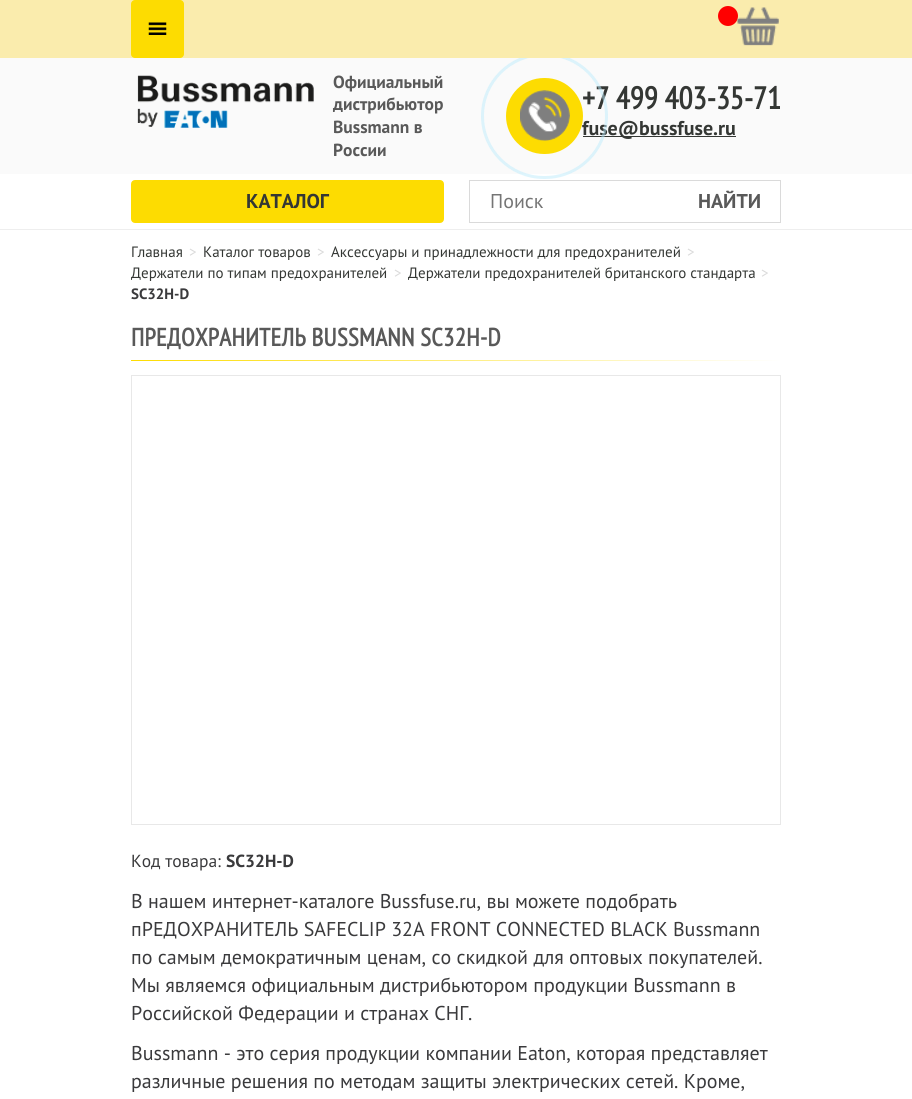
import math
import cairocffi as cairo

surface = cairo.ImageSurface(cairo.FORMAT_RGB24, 912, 1099)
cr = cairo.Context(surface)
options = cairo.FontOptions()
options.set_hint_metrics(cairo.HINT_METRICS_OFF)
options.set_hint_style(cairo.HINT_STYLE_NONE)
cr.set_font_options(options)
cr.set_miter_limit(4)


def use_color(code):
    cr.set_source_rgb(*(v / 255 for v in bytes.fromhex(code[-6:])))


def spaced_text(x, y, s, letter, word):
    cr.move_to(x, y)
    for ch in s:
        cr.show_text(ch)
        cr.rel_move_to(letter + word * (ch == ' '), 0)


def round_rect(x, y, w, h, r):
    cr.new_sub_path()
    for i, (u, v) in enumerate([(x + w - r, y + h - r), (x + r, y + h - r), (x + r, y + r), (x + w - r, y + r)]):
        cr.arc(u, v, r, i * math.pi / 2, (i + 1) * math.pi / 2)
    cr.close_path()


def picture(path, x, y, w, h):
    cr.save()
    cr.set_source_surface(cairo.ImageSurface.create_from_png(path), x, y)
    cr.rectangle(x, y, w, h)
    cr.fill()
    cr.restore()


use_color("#ffffff")
cr.paint()
use_color("#fafafa")
cr.rectangle(0, 58, 912, 116)
cr.fill()
cr.select_font_face("PT Sans Narrow", cairo.FONT_SLANT_NORMAL, cairo.FONT_WEIGHT_BOLD)
cr.set_font_size(31.25)
use_color("#343734")
cr.move_to(582, 109)
cr.show_text("+7 499 403-35-71")
cr.rectangle(583, 136, 153, 1)
cr.fill()
cr.select_font_face("PT Sans", cairo.FONT_SLANT_NORMAL, cairo.FONT_WEIGHT_BOLD)
cr.set_font_size(20)
cr.move_to(582, 135)
cr.show_text("fuse@bussfuse.ru")
round_rect(482.5, 54.5, 124, 123, 61.5)
cr.set_source_rgba(0.749, 0.922, 0.988, 0.5)
cr.set_line_width(3)
cr.stroke()
use_color("#faecad")
cr.rectangle(0, 0, 912, 58)
cr.fill()
use_color("#fddc01")
round_rect(131, 0, 53, 58, 4)
cr.fill()
picture("img1.png", 148, 22, 19, 13)
use_color("#ff0000")
cr.arc(728, 16, 10, 0, 2 * math.pi)
cr.fill()
picture("img2.png", 737, 7, 42, 39)
picture("img3.png", 137, 75, 177, 53)
cr.set_font_size(17.5)
use_color("#595959")
cr.move_to(333, 88)
cr.show_text("Официальный")
cr.move_to(333, 110)
cr.show_text("дистрибьютор")
cr.move_to(333, 133)
cr.show_text("Bussmann в")
cr.move_to(333, 156)
cr.show_text("России")
use_color("#fddc01")
round_rect(506, 78, 77, 76, 38)
cr.fill()
picture("img4.png", 520, 90, 50, 51)
round_rect(132.5, 181.5, 310, 40, 2.5)
cr.fill_preserve()
cr.stroke()
cr.set_font_size(20)
use_color("#343734")
cr.move_to(246, 208)
cr.show_text("КАТАЛОГ")
cr.rectangle(469.5, 180.5, 311, 42)
use_color("#dadada")
cr.set_line_width(1)
cr.stroke()
cr.select_font_face("PT Sans")
use_color("#757575")
cr.move_to(490, 208)
cr.show_text("Поиск")
cr.select_font_face("PT Sans", cairo.FONT_SLANT_NORMAL, cairo.FONT_WEIGHT_BOLD)
use_color("#595959")
cr.move_to(698, 208)
cr.show_text("НАЙТИ")
use_color("#eeeeee")
cr.rectangle(0, 229, 912, 1)
cr.fill()
cr.select_font_face("PT Sans")
cr.set_font_size(15)
use_color("#343734")
cr.move_to(131, 257)
cr.show_text("Главная")
use_color("#dadada")
cr.move_to(189, 257)
cr.show_text(">")
use_color("#343734")
cr.move_to(203, 257)
cr.show_text("Каталог товаров")
use_color("#dadada")
cr.move_to(317, 257)
cr.show_text(">")
use_color("#343734")
cr.move_to(331, 257)
cr.show_text("Аксессуары и принадлежности для предохранителей")
use_color("#dadada")
cr.move_to(687, 257)
cr.show_text(">")
use_color("#343734")
cr.move_to(131, 278)
cr.show_text("Держатели по типам предохранителей")
use_color("#dadada")
cr.move_to(394, 278)
cr.show_text(">")
use_color("#343734")
cr.move_to(408, 278)
cr.show_text("Держатели предохранителей британского стандарта")
use_color("#dadada")
cr.move_to(761, 278)
cr.show_text(">")
cr.select_font_face("PT Sans", cairo.FONT_SLANT_NORMAL, cairo.FONT_WEIGHT_BOLD)
use_color("#3a3a3c")
cr.move_to(131, 299)
cr.show_text("SC32H-D")
cr.select_font_face("PT Sans Narrow", cairo.FONT_SLANT_NORMAL, cairo.FONT_WEIGHT_BOLD)
cr.set_font_size(25)
use_color("#595959")
spaced_text(131, 346, "ПРЕДОХРАНИТЕЛЬ BUSSMANN SC32H-D", 0.3, 0)
gradient = cairo.LinearGradient(131, 361, 781, 361)
gradient.add_color_stop_rgba(0, 0.992, 0.863, 0.004, 1)
gradient.add_color_stop_rgba(1, 1, 1, 1, 1)
cr.set_source(gradient)
cr.rectangle(131, 360, 650, 1)
cr.fill()
cr.rectangle(131.5, 375.5, 649, 449)
use_color("#e8e8e8")
cr.stroke()
cr.select_font_face("PT Sans")
cr.set_font_size(17.5)
use_color("#3a3a3c")
cr.move_to(131, 867)
cr.show_text("Код товара:")
cr.select_font_face("PT Sans", cairo.FONT_SLANT_NORMAL, cairo.FONT_WEIGHT_BOLD)
cr.move_to(226, 867)
cr.show_text("SC32H-D")
cr.select_font_face("PT Sans")
cr.set_font_size(20)
cr.move_to(131, 908)
cr.show_text("В нашем интернет-каталоге Bussfuse.ru, вы можете подобрать")
cr.move_to(131, 936)
cr.show_text("пРЕДОХРАНИТЕЛЬ SAFECLIP 32A FRONT CONNECTED BLACK Bussmann")
cr.move_to(131, 964)
cr.show_text("по самым демократичным ценам, со скидкой для оптовых покупателей.")
cr.move_to(131, 992)
cr.show_text("Мы являемся официальным дистрибьютором продукции Bussmann в")
cr.move_to(131, 1020)
cr.show_text("Российской Федерации и странах СНГ.")
cr.move_to(131, 1060)
cr.show_text("Bussmann - это серия продукции компании Eaton, которая представляет")
cr.move_to(131, 1088)
cr.show_text("различные решения по методам защиты электрических сетей. Кроме,")
surface.write_to_png("result.png")
